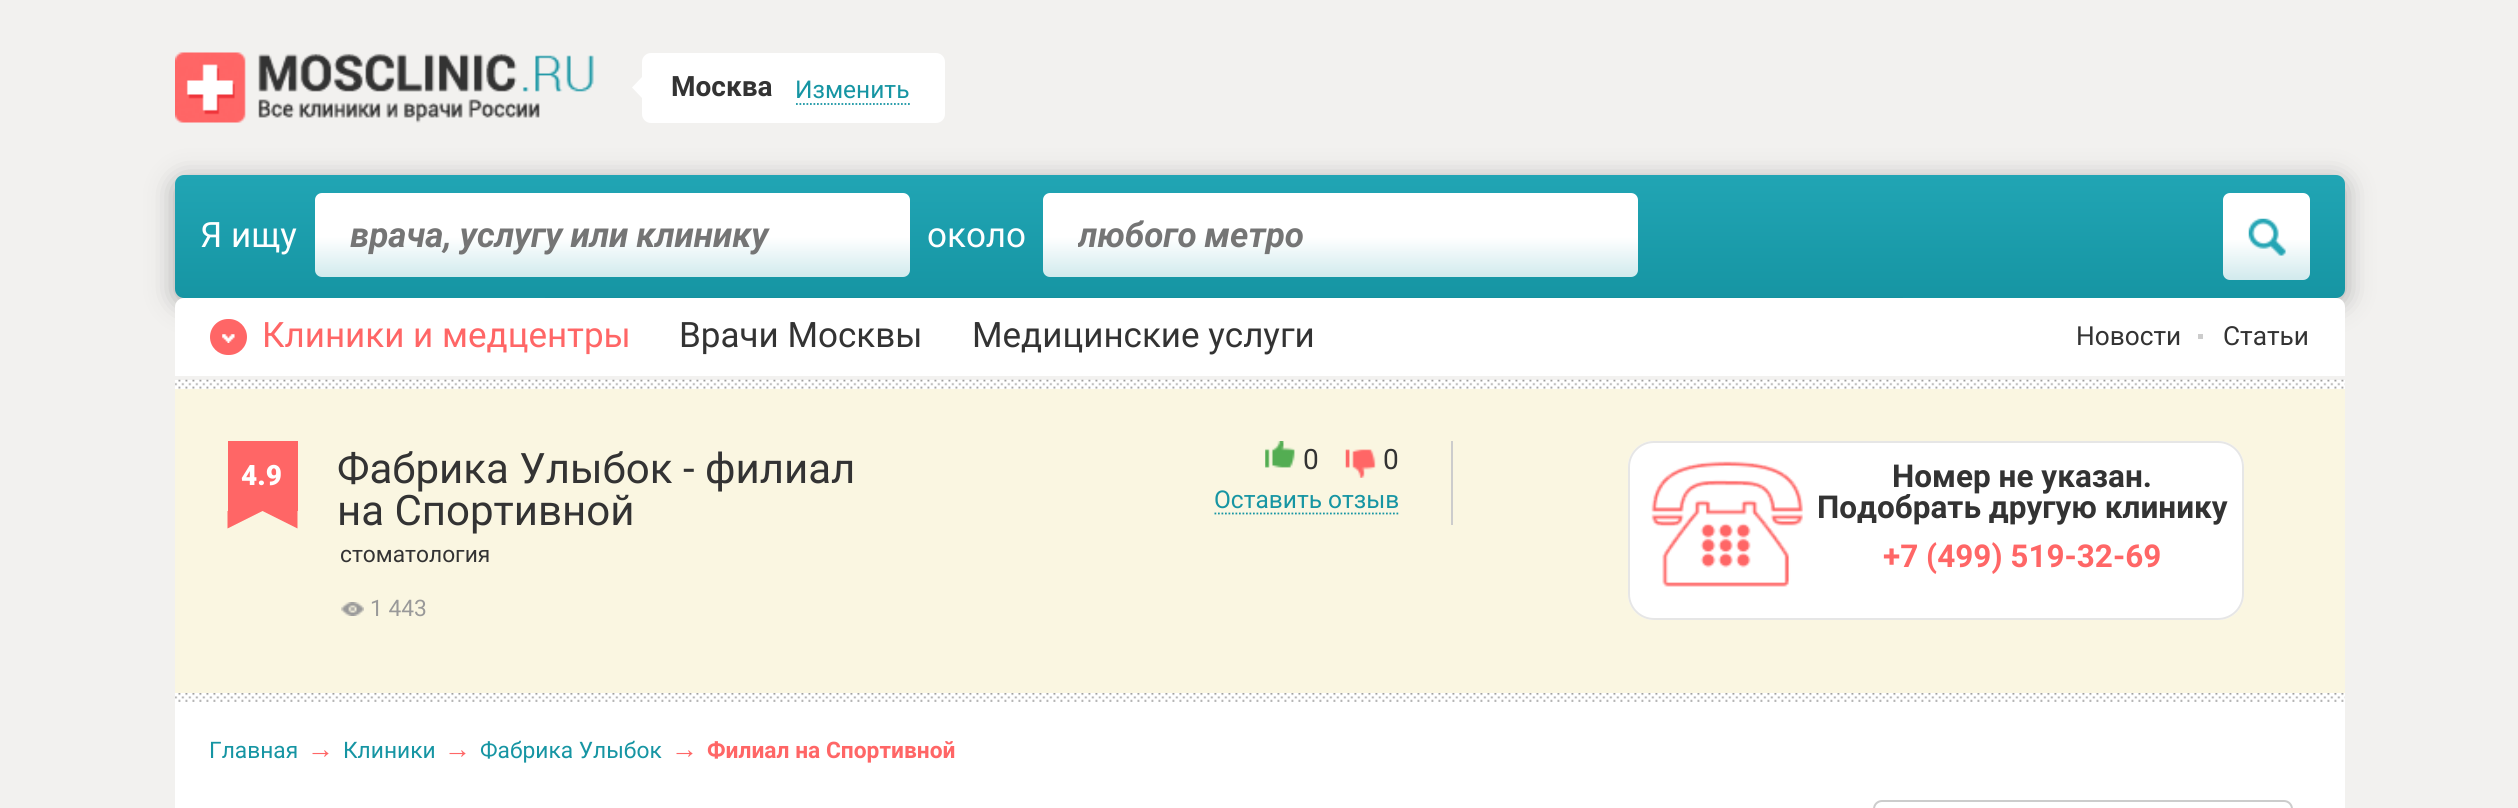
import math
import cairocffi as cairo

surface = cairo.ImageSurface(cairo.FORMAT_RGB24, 2518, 808)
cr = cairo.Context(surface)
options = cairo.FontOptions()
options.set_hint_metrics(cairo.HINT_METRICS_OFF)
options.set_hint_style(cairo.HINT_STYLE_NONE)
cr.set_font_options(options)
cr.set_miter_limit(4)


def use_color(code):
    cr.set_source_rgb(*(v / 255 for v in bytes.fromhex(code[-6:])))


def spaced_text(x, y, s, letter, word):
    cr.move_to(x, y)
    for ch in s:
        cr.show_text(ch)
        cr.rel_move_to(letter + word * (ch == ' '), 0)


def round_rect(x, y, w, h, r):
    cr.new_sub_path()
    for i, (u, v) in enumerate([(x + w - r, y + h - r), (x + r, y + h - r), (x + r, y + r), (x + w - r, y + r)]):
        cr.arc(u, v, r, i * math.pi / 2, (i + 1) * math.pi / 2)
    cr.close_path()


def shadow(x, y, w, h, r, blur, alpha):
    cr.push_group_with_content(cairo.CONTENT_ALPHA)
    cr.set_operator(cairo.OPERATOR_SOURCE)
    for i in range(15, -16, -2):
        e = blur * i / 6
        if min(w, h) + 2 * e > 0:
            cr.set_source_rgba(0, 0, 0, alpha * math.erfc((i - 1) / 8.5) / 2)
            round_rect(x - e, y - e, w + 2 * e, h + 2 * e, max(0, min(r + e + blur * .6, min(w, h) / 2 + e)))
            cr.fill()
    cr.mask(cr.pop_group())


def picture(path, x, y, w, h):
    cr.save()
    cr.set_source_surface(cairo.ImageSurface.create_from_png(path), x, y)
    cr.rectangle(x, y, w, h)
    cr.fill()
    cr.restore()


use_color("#f2f1ef")
cr.paint()
picture("img1.png", 175, 52, 419, 71)
use_color("#ffffff")
round_rect(642, 53, 303, 70, 9)
cr.fill()
cr.new_path()
cr.move_to(642, 77)
cr.line_to(642, 98)
cr.line_to(632, 87.5)
cr.close_path()
cr.fill()
cr.select_font_face("Roboto", cairo.FONT_SLANT_NORMAL, cairo.FONT_WEIGHT_BOLD)
cr.set_font_size(28)
use_color("#333333")
cr.move_to(671, 96)
cr.show_text("Москва")
cr.new_path()
cr.move_to(796, 104)
cr.line_to(910, 104)
use_color("#1695a3")
cr.set_line_width(1.8)
cr.set_dash([1.75, 1.75])
cr.stroke()
cr.select_font_face("Roboto")
cr.set_font_size(24.5)
cr.move_to(795, 98)
cr.show_text("Изменить")
use_color("#a8a8a8")
shadow(175, 180, 2170, 123, 9, 13, 1)
gradient = cairo.LinearGradient(1260, 175, 1260, 298)
gradient.add_color_stop_rgba(0, 0.129, 0.647, 0.706, 1)
gradient.add_color_stop_rgba(1, 0.086, 0.584, 0.639, 1)
cr.set_source(gradient)
round_rect(175, 175, 2170, 123, 9)
cr.fill()
cr.set_font_size(35)
use_color("#ffffff")
cr.move_to(200, 247)
cr.show_text("Я ищу")
gradient = cairo.LinearGradient(613, 192, 613, 277)
gradient.add_color_stop_rgba(0, 1, 1, 1, 1)
gradient.add_color_stop_rgba(0.53, 1, 1, 1, 1)
gradient.add_color_stop_rgba(1, 0.82, 0.918, 0.929, 1)
cr.set_source(gradient)
round_rect(315, 193, 595, 84, 7)
cr.fill()
cr.select_font_face("Roboto", cairo.FONT_SLANT_ITALIC, cairo.FONT_WEIGHT_BOLD)
use_color("#757575")
spaced_text(350, 247, "врача, услугу или клинику", 0, -0.5)
cr.select_font_face("Roboto")
use_color("#ffffff")
cr.move_to(927, 247)
cr.show_text("около")
gradient = cairo.LinearGradient(1341, 192, 1341, 277)
gradient.add_color_stop_rgba(0, 1, 1, 1, 1)
gradient.add_color_stop_rgba(0.53, 1, 1, 1, 1)
gradient.add_color_stop_rgba(1, 0.82, 0.918, 0.929, 1)
cr.set_source(gradient)
round_rect(1043, 193, 595, 84, 7)
cr.fill()
cr.save()
cr.rectangle(1078, 214, 525, 42)
cr.clip()
cr.select_font_face("Roboto", cairo.FONT_SLANT_ITALIC, cairo.FONT_WEIGHT_BOLD)
use_color("#757575")
spaced_text(1078, 247, "любого метро", 0, -1)
cr.restore()
gradient = cairo.LinearGradient(2266, 193, 2266, 280)
gradient.add_color_stop_rgba(0, 1, 1, 1, 1)
gradient.add_color_stop_rgba(0.53, 1, 1, 1, 1)
gradient.add_color_stop_rgba(1, 0.82, 0.918, 0.929, 1)
cr.set_source(gradient)
round_rect(2223, 193, 87, 87, 7)
cr.fill()
picture("img2.png", 2248, 218, 38, 38)
picture("img3.png", 545, 297, 1358, 1)
use_color("#ffffff")
round_rect(175, 298, 2170, 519, 9)
cr.fill()
use_color("#f2f1ef")
cr.rectangle(175, 376, 2170, 4)
cr.fill()
use_color("#ff6666")
round_rect(212, 321, 33, 32, 16)
cr.fill_preserve()
cr.set_line_width(4)
cr.set_dash([])
cr.stroke()
cr.move_to(262, 347)
cr.show_text("Клиники и медцентры")
picture("img4.png", 222, 334, 13, 9)
use_color("#333333")
cr.move_to(679, 347)
cr.show_text("Врачи Москвы")
cr.move_to(972, 347)
cr.show_text("Медицинские услуги")
cr.set_font_size(26.25)
cr.move_to(2076, 345)
cr.show_text("Новости")
use_color("#cccccc")
cr.rectangle(2198, 334, 5, 5)
cr.fill()
use_color("#333333")
cr.move_to(2223, 345)
cr.show_text("Статьи")
picture("img5.png", 175, 379, 2170, 10)
use_color("#faf6e1")
cr.rectangle(175, 389, 2170, 304)
cr.fill()
use_color("#ff6666")
cr.rectangle(228, 441, 70, 70)
cr.fill()
cr.select_font_face("Roboto Black")
cr.set_font_size(28)
use_color("#ffffff")
cr.move_to(241, 485)
cr.show_text("4.9")
use_color("#ff6666")
cr.new_path()
cr.move_to(297.5, 511)
cr.line_to(297.5, 528.5)
cr.line_to(262.5, 511)
cr.close_path()
cr.fill()
cr.new_path()
cr.move_to(227.5, 528.5)
cr.line_to(227.5, 511)
cr.line_to(262.5, 511)
cr.close_path()
cr.fill()
cr.select_font_face("Roboto")
cr.set_font_size(42)
use_color("#333333")
cr.move_to(337, 483)
cr.show_text("Фабрика Улыбок - филиал")
cr.move_to(337, 525)
cr.show_text("на Спортивной")
cr.set_font_size(22.75)
cr.move_to(340, 562)
cr.show_text("стоматология")
picture("img6.png", 341, 602, 23, 14)
use_color("#999999")
cr.move_to(370, 616)
cr.show_text("1 443")
use_color("#cccccc")
cr.rectangle(1451, 441, 2, 84)
cr.fill()
picture("img7.png", 1265, 441, 30, 27)
cr.set_font_size(28)
use_color("#333333")
cr.move_to(1303, 469)
cr.show_text("0")
picture("img8.png", 1345, 449, 31, 29)
cr.move_to(1383, 469)
cr.show_text("0")
cr.new_path()
cr.move_to(1214.5, 513.5)
cr.line_to(1400, 513.5)
use_color("#1695a3")
cr.set_line_width(1.8)
cr.set_dash([1.75, 1.75])
cr.stroke()
cr.set_font_size(24.5)
cr.move_to(1214, 508)
cr.show_text("Оставить отзыв")
use_color("#ffffff")
round_rect(1628, 441, 616, 179, 26)
cr.fill()
picture("img9.png", 1651, 461, 152, 126)
round_rect(1629, 442, 614, 177, 25)
use_color("#e6e6e6")
cr.set_line_width(2)
cr.set_dash([])
cr.stroke()
cr.select_font_face("Roboto", cairo.FONT_SLANT_NORMAL, cairo.FONT_WEIGHT_BOLD)
cr.set_font_size(31.5)
use_color("#333333")
cr.move_to(1892, 487)
cr.show_text("Номер не указан.")
cr.move_to(1817, 518)
cr.show_text("Подобрать другую клинику")
use_color("#ff6666")
cr.move_to(1883, 567)
cr.show_text("+7 (499) 519-32-69")
picture("img10.png", 175, 693, 2170, 9)
cr.select_font_face("Roboto")
cr.set_font_size(22.75)
use_color("#1695a3")
cr.move_to(209, 758)
cr.show_text("Главная")
cr.select_font_face("Liberation Sans")
cr.set_font_size(27)
use_color("#ff6666")
cr.move_to(307, 758)
cr.show_text("→")
cr.select_font_face("Roboto")
cr.set_font_size(22.75)
use_color("#1695a3")
cr.move_to(343, 758)
cr.show_text("Клиники")
cr.select_font_face("Liberation Sans")
cr.set_font_size(27)
use_color("#ff6666")
cr.move_to(444, 758)
cr.show_text("→")
cr.select_font_face("Roboto")
cr.set_font_size(22.75)
use_color("#1695a3")
cr.move_to(480, 758)
cr.show_text("Фабрика Улыбок")
cr.select_font_face("Liberation Sans")
cr.set_font_size(27)
use_color("#ff6666")
cr.move_to(671, 758)
cr.show_text("→")
cr.select_font_face("Roboto", cairo.FONT_SLANT_NORMAL, cairo.FONT_WEIGHT_BOLD)
cr.set_font_size(22.75)
cr.move_to(707, 758)
cr.show_text("Филиал на Спортивной")
round_rect(1874, 801, 418, 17, 8)
use_color("#cccccc")
cr.stroke()
surface.write_to_png("result.png")
